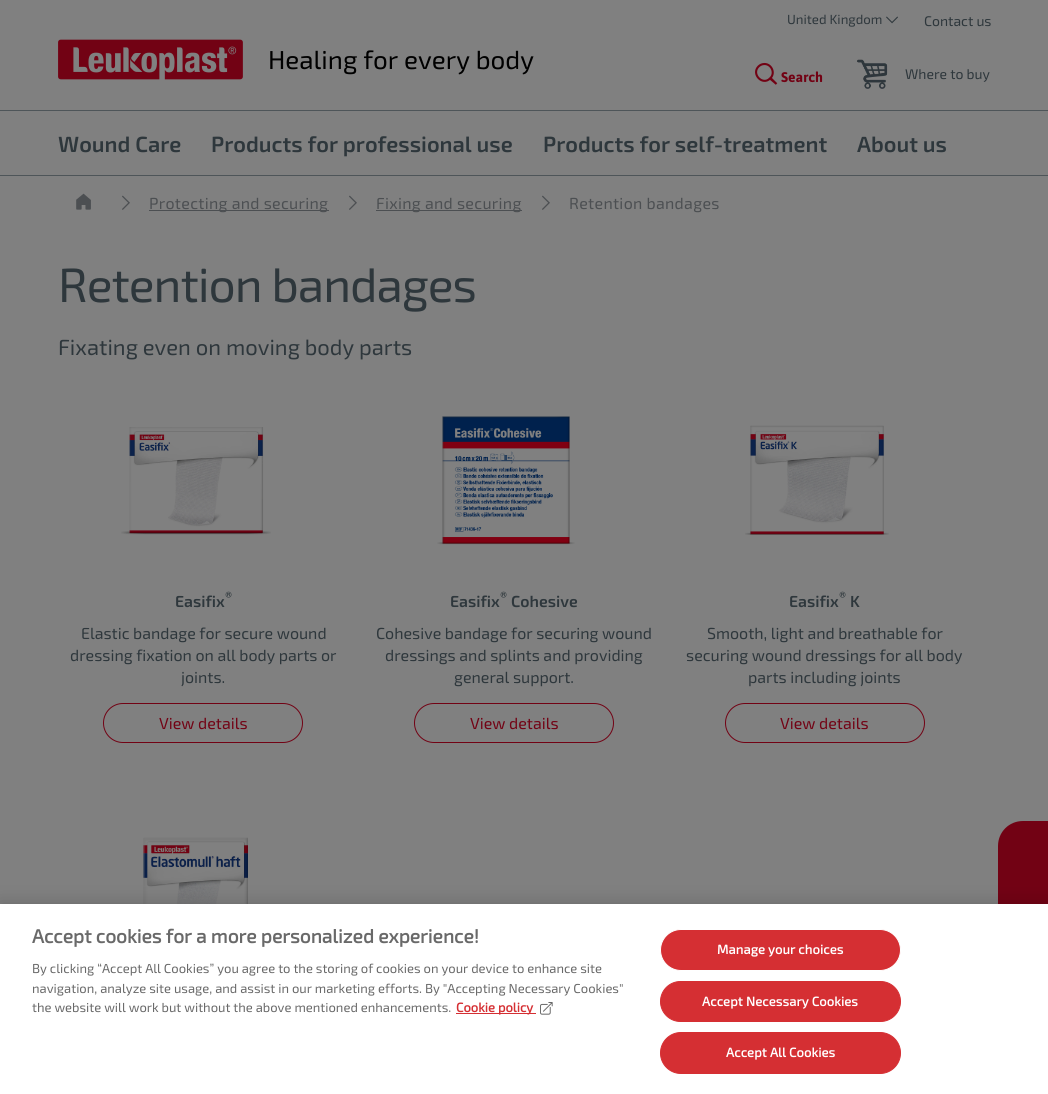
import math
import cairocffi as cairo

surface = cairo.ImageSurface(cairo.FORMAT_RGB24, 1048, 1094)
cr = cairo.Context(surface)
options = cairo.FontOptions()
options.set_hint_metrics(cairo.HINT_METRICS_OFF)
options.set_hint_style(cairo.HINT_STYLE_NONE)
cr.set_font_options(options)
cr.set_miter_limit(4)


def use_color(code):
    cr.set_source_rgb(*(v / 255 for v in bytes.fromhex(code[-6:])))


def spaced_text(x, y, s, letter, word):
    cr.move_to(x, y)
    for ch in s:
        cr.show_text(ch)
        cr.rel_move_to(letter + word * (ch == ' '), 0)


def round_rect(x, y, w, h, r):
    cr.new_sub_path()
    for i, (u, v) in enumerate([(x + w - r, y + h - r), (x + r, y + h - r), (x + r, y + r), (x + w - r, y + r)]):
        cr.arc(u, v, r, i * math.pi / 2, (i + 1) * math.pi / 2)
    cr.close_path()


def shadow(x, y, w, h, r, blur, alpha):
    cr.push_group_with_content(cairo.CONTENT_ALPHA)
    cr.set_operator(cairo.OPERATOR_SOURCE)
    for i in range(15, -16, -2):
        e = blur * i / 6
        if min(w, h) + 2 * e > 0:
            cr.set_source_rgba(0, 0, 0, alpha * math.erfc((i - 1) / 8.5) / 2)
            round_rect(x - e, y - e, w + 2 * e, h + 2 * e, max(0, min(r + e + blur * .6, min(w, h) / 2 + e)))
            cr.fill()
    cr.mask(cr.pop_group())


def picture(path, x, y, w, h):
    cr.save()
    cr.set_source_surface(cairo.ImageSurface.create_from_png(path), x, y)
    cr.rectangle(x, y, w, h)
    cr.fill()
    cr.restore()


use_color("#808080")
cr.paint()
cr.select_font_face("Exo 2")
cr.set_font_size(13.25)
use_color("#2e373c")
cr.move_to(787, 24)
cr.show_text("United Kingdom")
picture("img1.png", 886, 16, 12, 8)
cr.set_font_size(14)
cr.move_to(924, 26)
cr.show_text("Contact us")
picture("img2.png", 58, 39, 185, 41)
cr.set_font_size(26)
use_color("#000000")
cr.move_to(268, 69)
cr.show_text("Healing for every body")
cr.new_path()
cr.move_to(764.5, 64)
cr.curve_to(771.5, 64, 775.5, 73, 770.5, 78)
cr.line_to(776.5, 84)
cr.line_to(770, 78.5)
cr.curve_to(762.5, 86, 751, 74, 758.5, 66.5)
cr.curve_to(760, 65, 762, 64, 764.5, 64)
cr.close_path()
use_color("#720214")
cr.set_line_width(2.1)
cr.stroke()
cr.select_font_face("Asap", cairo.FONT_SLANT_NORMAL, cairo.FONT_WEIGHT_BOLD)
cr.set_font_size(14)
cr.move_to(781, 82)
cr.show_text("Search")
picture("img3.png", 857, 59, 31, 30)
cr.select_font_face("Exo 2")
use_color("#2e373c")
cr.move_to(905, 79)
cr.show_text("Where to buy")
use_color("#4e5559")
cr.rectangle(0, 110, 1048, 1)
cr.fill()
cr.rectangle(0, 175, 1048, 1)
cr.fill()
cr.select_font_face("Exo 2 SemiBold")
cr.set_font_size(22)
use_color("#2e373c")
cr.move_to(58, 152)
cr.show_text("Wound Care")
cr.move_to(211, 152)
cr.show_text("Products for professional use")
cr.move_to(543, 152)
cr.show_text("Products for self-treatment")
cr.move_to(857, 152)
cr.show_text("About us")
picture("img4.png", 76, 193, 15, 17)
picture("img5.png", 122, 195, 8, 15)
use_color("#4c4f52")
cr.rectangle(149, 210, 180, 1)
cr.fill()
cr.select_font_face("Exo 2")
cr.set_font_size(16)
spaced_text(149, 209, "Protecting and securing", 0.3, 0)
picture("img5.png", 349, 195, 8, 15)
cr.rectangle(376, 210, 146, 1)
cr.fill()
spaced_text(376, 209, "Fixing and securing", 0.3, 0)
picture("img5.png", 542, 195, 8, 15)
spaced_text(569, 209, "Retention bandages", 0.3, 0)
cr.set_font_size(48)
use_color("#2e373c")
spaced_text(58, 302, "Retention bandages", -1, 0)
cr.set_font_size(22)
cr.move_to(58, 355)
cr.show_text("Fixating even on moving body parts")
picture("img6.png", 121, 427, 150, 108)
cr.select_font_face("Exo 2 SemiBold")
cr.set_font_size(16)
cr.move_to(175, 607)
cr.show_text("Easifix")
cr.set_font_size(13.25)
cr.move_to(225, 601)
cr.show_text("®")
cr.select_font_face("Exo 2")
cr.set_font_size(16)
cr.move_to(81, 639)
cr.show_text("Elastic bandage for secure wound")
cr.move_to(70, 661)
cr.show_text("dressing fixation on all body parts or")
cr.move_to(181, 683)
cr.show_text("joints.")
round_rect(103.5, 703.5, 199, 39, 19.5)
use_color("#720214")
cr.set_line_width(1)
cr.stroke()
cr.move_to(159, 729)
cr.show_text("View details")
picture("img7.png", 437, 416, 138, 129)
cr.select_font_face("Exo 2 SemiBold")
use_color("#2e373c")
cr.move_to(450, 607)
cr.show_text("Easifix")
cr.set_font_size(13.25)
cr.move_to(500, 601)
cr.show_text("®")
cr.set_font_size(16)
cr.move_to(511, 607)
cr.show_text("Cohesive")
cr.select_font_face("Exo 2")
cr.move_to(376, 639)
cr.show_text("Cohesive bandage for securing wound")
cr.move_to(385, 661)
cr.show_text("dressings and splints and providing")
cr.move_to(454, 683)
cr.show_text("general support.")
round_rect(414.5, 703.5, 199, 39, 19.5)
use_color("#720214")
cr.stroke()
cr.move_to(470, 729)
cr.show_text("View details")
picture("img8.png", 745, 425, 144, 110)
cr.select_font_face("Exo 2 SemiBold")
use_color("#2e373c")
cr.move_to(789, 607)
cr.show_text("Easifix")
cr.set_font_size(13.25)
cr.move_to(839, 601)
cr.show_text("®")
cr.set_font_size(16)
cr.move_to(850, 607)
cr.show_text("K")
cr.select_font_face("Exo 2")
cr.move_to(707, 639)
cr.show_text("Smooth, light and breathable for")
cr.move_to(686, 661)
cr.show_text("securing wound dressings for all body")
cr.move_to(748, 683)
cr.show_text("parts including joints")
round_rect(725.5, 703.5, 199, 39, 19.5)
use_color("#720214")
cr.stroke()
cr.move_to(780, 729)
cr.show_text("View details")
picture("img9.png", 143, 837, 105, 67)
cr.new_path()
cr.move_to(1023, 821)
cr.line_to(1048, 821)
cr.line_to(1048, 976)
cr.line_to(1023, 976)
cr.curve_to(1009, 976, 998, 965, 998, 951)
cr.line_to(998, 846)
cr.curve_to(998, 832, 1009, 821, 1023, 821)
cr.close_path()
cr.fill()
use_color("#000000")
shadow(0, 904, 1048, 190, 0, 9, 0.2)
use_color("#ffffff")
cr.rectangle(0, 904, 1048, 190)
cr.fill()
cr.select_font_face("Exo 2", cairo.FONT_SLANT_NORMAL, cairo.FONT_WEIGHT_BOLD)
cr.set_font_size(19.2)
use_color("#696969")
cr.move_to(32, 943)
cr.show_text("Accept cookies for a more personalized experience!")
cr.select_font_face("Exo 2")
cr.set_font_size(13)
cr.move_to(32, 973)
cr.show_text("By clicking “Accept All Cookies” you agree to the storing of cookies on your device to enhance site")
cr.move_to(32, 993)
cr.show_text("navigation, analyze site usage, and assist in our marketing efforts. By \"Accepting Necessary Cookies\"")
cr.move_to(32, 1012)
cr.show_text("the website will work but without the above mentioned enhancements.")
use_color("#d52f33")
cr.rectangle(456, 1013, 77, 1)
cr.fill()
cr.select_font_face("Exo 2", cairo.FONT_SLANT_NORMAL, cairo.FONT_WEIGHT_BOLD)
cr.move_to(456, 1012)
cr.show_text("Cookie policy")
cr.rectangle(533, 1013, 3, 1)
cr.fill()
picture("img10.png", 540, 1002, 13, 13)
round_rect(660.5, 929.5, 240, 41, 20.5)
cr.fill_preserve()
use_color("#ffffff")
cr.stroke()
spaced_text(717, 954, "Manage your choices", 0.1, 0)
use_color("#d52f33")
round_rect(660.5, 981.5, 240, 40, 20)
cr.fill_preserve()
cr.stroke()
use_color("#ffffff")
spaced_text(702, 1006, "Accept Necessary Cookies", 0.1, 0)
use_color("#d52f33")
round_rect(660.5, 1032.5, 240, 41, 20.5)
cr.fill_preserve()
cr.stroke()
use_color("#ffffff")
spaced_text(726, 1057, "Accept All Cookies", 0.1, 0)
surface.write_to_png("result.png")
